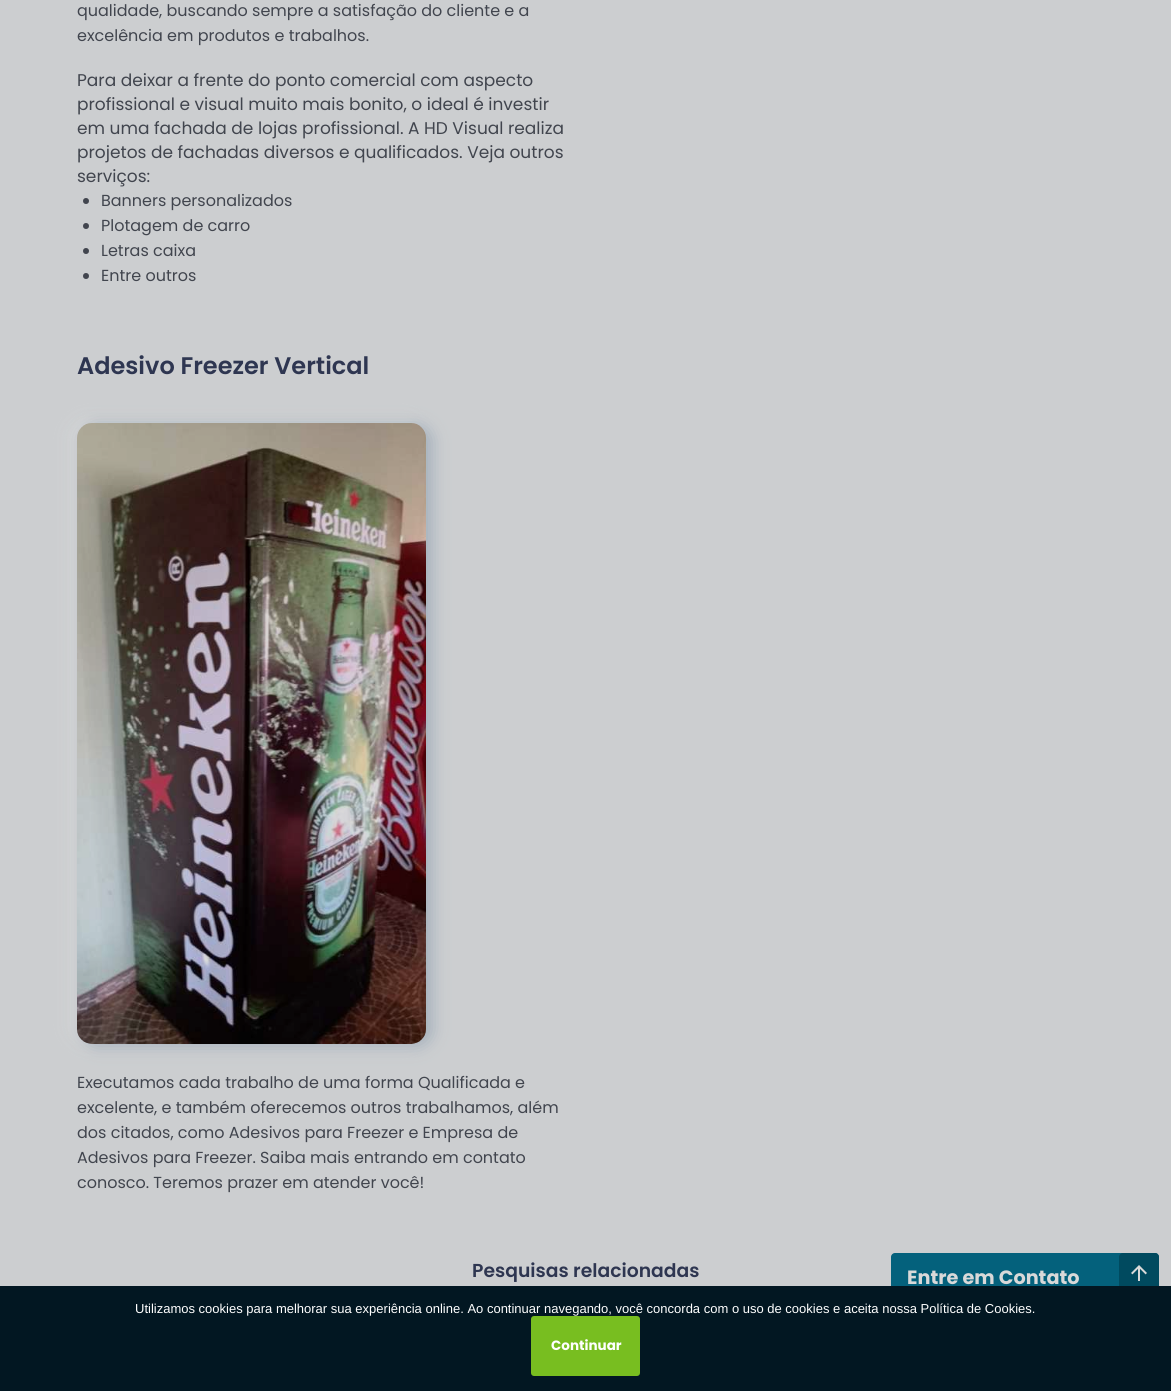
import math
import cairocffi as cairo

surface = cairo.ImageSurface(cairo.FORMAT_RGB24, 1171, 1391)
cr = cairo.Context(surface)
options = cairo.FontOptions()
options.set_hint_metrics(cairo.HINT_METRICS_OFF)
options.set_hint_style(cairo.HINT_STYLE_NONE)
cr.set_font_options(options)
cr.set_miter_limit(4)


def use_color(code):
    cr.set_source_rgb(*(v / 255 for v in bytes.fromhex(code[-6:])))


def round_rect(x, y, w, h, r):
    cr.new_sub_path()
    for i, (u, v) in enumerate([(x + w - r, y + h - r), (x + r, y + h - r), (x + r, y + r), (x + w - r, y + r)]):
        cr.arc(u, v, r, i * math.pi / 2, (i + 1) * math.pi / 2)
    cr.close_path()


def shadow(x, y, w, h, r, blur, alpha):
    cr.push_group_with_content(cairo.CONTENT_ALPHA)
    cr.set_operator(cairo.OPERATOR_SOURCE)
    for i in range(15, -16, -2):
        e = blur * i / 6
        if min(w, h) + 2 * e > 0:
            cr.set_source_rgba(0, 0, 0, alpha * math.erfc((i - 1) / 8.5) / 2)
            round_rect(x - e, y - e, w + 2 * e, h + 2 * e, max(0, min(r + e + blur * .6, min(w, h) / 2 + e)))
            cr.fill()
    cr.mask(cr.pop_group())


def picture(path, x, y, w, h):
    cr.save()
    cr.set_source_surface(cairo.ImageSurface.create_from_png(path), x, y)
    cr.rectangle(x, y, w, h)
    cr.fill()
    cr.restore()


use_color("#ccced0")
cr.paint()
cr.select_font_face("Poppins")
cr.set_font_size(16)
use_color("#41454e")
cr.move_to(77, 16)
cr.show_text("qualidade, buscando sempre a satisfação do cliente e a")
cr.move_to(77, 41)
cr.show_text("excelência em produtos e trabalhos.")
cr.set_font_size(17)
cr.move_to(77, 86)
cr.show_text("Para deixar a frente do ponto comercial com aspecto")
cr.move_to(77, 110)
cr.show_text("profissional e visual muito mais bonito, o ideal é investir")
cr.move_to(77, 134)
cr.show_text("em uma fachada de lojas profissional. A HD Visual realiza")
cr.move_to(77, 158)
cr.show_text("projetos de fachadas diversos e qualificados. Veja outros")
cr.move_to(77, 182)
cr.show_text("serviços:")
cr.new_path()
cr.arc(86, 201, 3, 0, 2 * math.pi)
cr.fill()
cr.set_font_size(16)
cr.move_to(101, 206)
cr.show_text("Banners personalizados")
cr.new_path()
cr.arc(86, 226, 3, 0, 2 * math.pi)
cr.fill()
cr.move_to(101, 231)
cr.show_text("Plotagem de carro")
cr.new_path()
cr.arc(86, 251, 3, 0, 2 * math.pi)
cr.fill()
cr.move_to(101, 256)
cr.show_text("Letras caixa")
cr.new_path()
cr.arc(86, 276, 3, 0, 2 * math.pi)
cr.fill()
cr.move_to(101, 281)
cr.show_text("Entre outros")
cr.select_font_face("Poppins SemiBold")
cr.set_font_size(24)
use_color("#2e3651")
cr.move_to(77, 374)
cr.show_text("Adesivo Freezer Vertical")
use_color("#d9d9d9")
shadow(71, 421, 349, 621, 15, 8, 0.8)
use_color("#748ca2")
shadow(83, 425, 349, 621, 15, 8, 0.48)
picture("img1.png", 77, 423, 349, 621)
cr.select_font_face("Poppins")
cr.set_font_size(16)
use_color("#41454e")
cr.move_to(77, 1088)
cr.show_text("Executamos cada trabalho de uma forma Qualificada e")
cr.move_to(77, 1113)
cr.show_text("excelente, e também oferecemos outros trabalhamos, além")
cr.move_to(77, 1138)
cr.show_text("dos citados, como Adesivos para Freezer e Empresa de")
cr.move_to(77, 1163)
cr.show_text("Adesivos para Freezer. Saiba mais entrando em contato")
cr.move_to(77, 1188)
cr.show_text("conosco. Teremos prazer em atender você!")
cr.select_font_face("Poppins SemiBold")
cr.set_font_size(18.75)
use_color("#2e3651")
cr.move_to(472, 1277)
cr.show_text("Pesquisas relacionadas")
use_color("#04617c")
round_rect(891, 1253, 268, 48, 4)
cr.fill()
cr.select_font_face("Poppins", cairo.FONT_SLANT_NORMAL, cairo.FONT_WEIGHT_BOLD)
cr.set_font_size(19.25)
use_color("#d9d9d9")
cr.move_to(907, 1284)
cr.show_text("Entre em Contato")
use_color("#004a5f")
round_rect(1119, 1253, 40, 48, 4)
cr.fill()
picture("img2.png", 1131, 1265, 16, 16)
use_color("#021722")
cr.rectangle(0, 1286, 1171, 105)
cr.fill()
cr.select_font_face("Liberation Sans")
cr.set_font_size(13)
use_color("#ffffff")
cr.move_to(135, 1313)
cr.show_text("Utilizamos cookies para melhorar sua experiência online. Ao continuar navegando, você concorda com o uso de cookies e aceita nossa Política de Cookies.")
use_color("#78be20")
round_rect(531, 1316, 109, 60, 3)
cr.fill()
cr.select_font_face("Poppins", cairo.FONT_SLANT_NORMAL, cairo.FONT_WEIGHT_BOLD)
cr.set_font_size(13.5)
use_color("#ffffff")
cr.move_to(551, 1350)
cr.show_text("Continuar")
surface.write_to_png("result.png")
